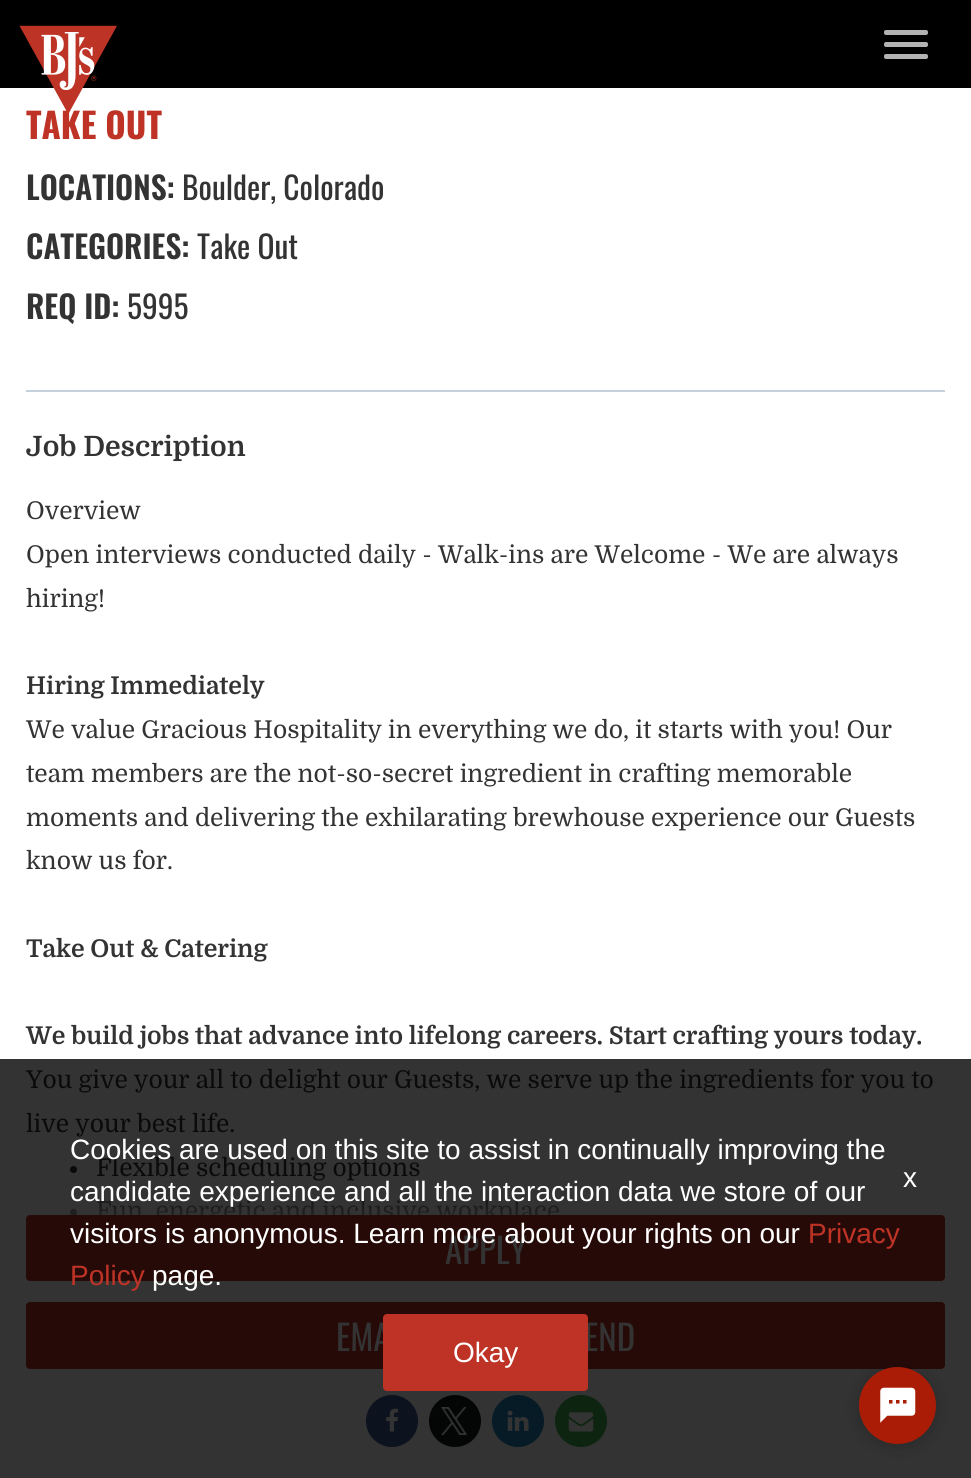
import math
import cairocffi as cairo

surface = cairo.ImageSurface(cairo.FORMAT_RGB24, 971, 1478)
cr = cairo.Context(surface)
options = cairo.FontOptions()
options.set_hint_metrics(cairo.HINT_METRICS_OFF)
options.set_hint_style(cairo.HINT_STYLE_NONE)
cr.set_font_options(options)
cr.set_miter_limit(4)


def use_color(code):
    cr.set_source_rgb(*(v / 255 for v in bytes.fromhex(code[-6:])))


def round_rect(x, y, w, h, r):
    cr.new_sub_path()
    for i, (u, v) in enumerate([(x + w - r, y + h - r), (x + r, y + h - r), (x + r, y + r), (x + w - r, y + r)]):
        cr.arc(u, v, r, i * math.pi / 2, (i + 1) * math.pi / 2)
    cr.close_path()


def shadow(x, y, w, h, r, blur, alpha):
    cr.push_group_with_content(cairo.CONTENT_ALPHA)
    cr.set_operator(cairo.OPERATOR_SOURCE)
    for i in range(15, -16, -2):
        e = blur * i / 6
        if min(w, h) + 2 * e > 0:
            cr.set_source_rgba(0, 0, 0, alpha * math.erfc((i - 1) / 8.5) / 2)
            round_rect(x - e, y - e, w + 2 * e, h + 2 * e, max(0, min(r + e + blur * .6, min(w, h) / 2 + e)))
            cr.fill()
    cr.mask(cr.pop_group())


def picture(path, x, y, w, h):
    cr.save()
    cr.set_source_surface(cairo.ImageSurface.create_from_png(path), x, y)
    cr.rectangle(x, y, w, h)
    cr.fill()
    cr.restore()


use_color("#ffffff")
cr.paint()
use_color("#000000")
cr.rectangle(0, 0, 971, 88)
cr.fill()
cr.select_font_face("Oswald", cairo.FONT_SLANT_NORMAL, cairo.FONT_WEIGHT_BOLD)
cr.set_font_size(35)
use_color("#be3326")
cr.move_to(26, 139)
cr.show_text("TAKE OUT")
picture("img1.png", 19, 25, 98, 88)
use_color("#b3b3b3")
round_rect(884, 30, 44, 5, 2)
cr.fill()
round_rect(884, 42, 44, 5, 2)
cr.fill()
round_rect(884, 54, 44, 5, 2)
cr.fill()
use_color("#333333")
cr.rectangle(0, 1059, 971, 419)
cr.fill()
use_color("#c5d0dd")
cr.rectangle(26, 390, 919, 2)
cr.fill()
cr.select_font_face("Oswald SemiBold")
cr.set_font_size(31.5)
use_color("#333333")
cr.move_to(26, 200)
cr.show_text("LOCATIONS:")
cr.select_font_face("Oswald")
cr.move_to(182, 200)
cr.show_text("Boulder, Colorado")
cr.select_font_face("Oswald SemiBold")
cr.move_to(26, 259)
cr.show_text("CATEGORIES:")
cr.select_font_face("Oswald")
cr.move_to(197, 259)
cr.show_text("Take Out")
cr.select_font_face("Oswald SemiBold")
cr.move_to(26, 319)
cr.show_text("REQ ID:")
cr.select_font_face("Oswald")
cr.move_to(127, 319)
cr.show_text("5995")
cr.select_font_face("Domine", cairo.FONT_SLANT_NORMAL, cairo.FONT_WEIGHT_BOLD)
cr.set_font_size(28)
cr.move_to(26, 456)
cr.show_text("Job Description")
cr.select_font_face("Domine")
cr.set_font_size(24.5)
cr.move_to(26, 519)
cr.show_text("Overview")
cr.move_to(26, 563)
cr.show_text("Open interviews conducted daily - Walk-ins are Welcome - We are always")
cr.move_to(26, 607)
cr.show_text("hiring!")
cr.select_font_face("Domine", cairo.FONT_SLANT_NORMAL, cairo.FONT_WEIGHT_BOLD)
cr.move_to(26, 694)
cr.show_text("Hiring Immediately")
cr.select_font_face("Domine")
cr.move_to(26, 738)
cr.show_text("We value Gracious Hospitality in everything we do, it starts with you! Our")
cr.move_to(26, 782)
cr.show_text("team members are the not-so-secret ingredient in crafting memorable")
cr.move_to(26, 826)
cr.show_text("moments and delivering the exhilarating brewhouse experience our Guests")
cr.move_to(26, 869)
cr.show_text("know us for.")
cr.select_font_face("Domine", cairo.FONT_SLANT_NORMAL, cairo.FONT_WEIGHT_BOLD)
cr.move_to(26, 957)
cr.show_text("Take Out & Catering")
cr.move_to(26, 1044)
cr.show_text("We build jobs that advance into lifelong careers. Start crafting yours today.")
cr.select_font_face("Domine")
use_color("#0a0a0a")
cr.move_to(26, 1088)
cr.show_text("You give your all to delight our Guests, we serve up the ingredients for you to")
cr.move_to(26, 1132)
cr.show_text("live your best life.")
cr.new_path()
cr.arc(73.5, 1169.5, 3.5, 0, 2 * math.pi)
cr.fill()
cr.move_to(96, 1176)
cr.show_text("Flexible scheduling options")
cr.new_path()
cr.arc(73.5, 1212.5, 3.5, 0, 2 * math.pi)
cr.fill()
cr.move_to(96, 1219)
cr.show_text("Fun, energetic and inclusive workplace")
gradient = cairo.LinearGradient(486, 1180, 486, 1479)
gradient.add_color_stop_rgba(0, 0.2, 0.2, 0.2, 0)
gradient.add_color_stop_rgba(0.2, 0.2, 0.2, 0.2, 1)
gradient.add_color_stop_rgba(1, 0.2, 0.2, 0.2, 1)
cr.set_source(gradient)
cr.rectangle(70, 1200, 490, 24)
cr.fill()
use_color("#260a08")
round_rect(26, 1215, 919, 66, 4)
cr.fill()
cr.select_font_face("Oswald")
cr.set_font_size(35)
use_color("#333333")
cr.move_to(445, 1264)
cr.show_text("APPLY")
use_color("#260a08")
round_rect(26, 1302, 919, 67, 4)
cr.fill()
use_color("#333333")
cr.move_to(336, 1351)
cr.show_text("EMA")
cr.move_to(584, 1351)
cr.show_text("END")
use_color("#0c121e")
cr.new_path()
cr.arc(392, 1421, 26, 0, 2 * math.pi)
cr.fill()
picture("img2.png", 386, 1408, 13, 24)
use_color("#040505")
cr.arc(455, 1421, 26, 0, 2 * math.pi)
cr.fill()
picture("img3.png", 441, 1407, 26, 28)
use_color("#061b26")
cr.arc(518, 1421, 26, 0, 2 * math.pi)
cr.fill()
picture("img4.png", 507, 1410, 22, 21)
use_color("#0d2410")
cr.arc(581, 1421, 26, 0, 2 * math.pi)
cr.fill()
picture("img5.png", 568, 1412, 26, 20)
cr.select_font_face("Liberation Sans")
cr.set_font_size(28)
use_color("#ffffff")
cr.move_to(70, 1159)
cr.show_text("Cookies are used on this site to assist in continually improving the")
cr.move_to(70, 1201)
cr.show_text("candidate experience and all the interaction data we store of our")
cr.move_to(70, 1243)
cr.show_text("visitors is anonymous. Learn more about your rights on our")
use_color("#be3326")
cr.move_to(808, 1243)
cr.show_text("Privacy")
cr.move_to(70, 1285)
cr.show_text("Policy")
use_color("#ffffff")
cr.move_to(152, 1285)
cr.show_text("page.")
use_color("#be3326")
round_rect(383, 1314, 205, 77, 4)
cr.fill()
use_color("#ffffff")
cr.move_to(453, 1362)
cr.show_text("Okay")
cr.move_to(903, 1187)
cr.show_text("x")
use_color("#000000")
shadow(859, 1369, 77, 77, 38.5, 9, 0.2)
use_color("#aa1c05")
cr.arc(897.5, 1405.5, 38.5, 0, 2 * math.pi)
cr.fill()
picture("img6.png", 880, 1387, 36, 36)
surface.write_to_png("result.png")
